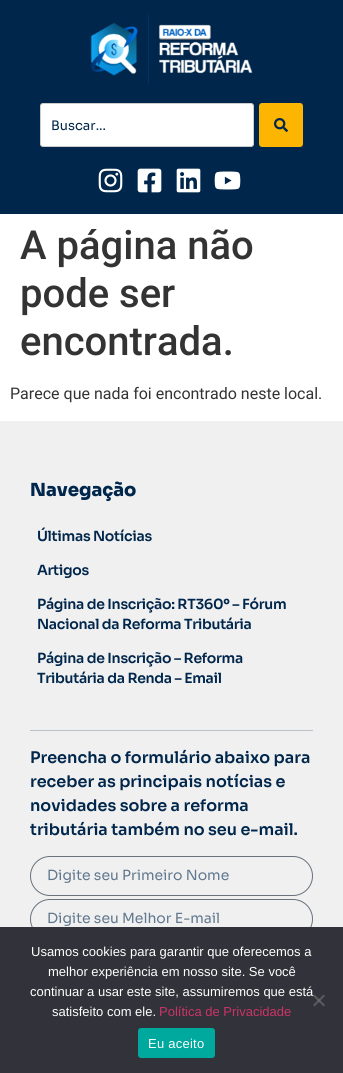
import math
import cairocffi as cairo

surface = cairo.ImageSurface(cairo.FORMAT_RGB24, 343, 1073)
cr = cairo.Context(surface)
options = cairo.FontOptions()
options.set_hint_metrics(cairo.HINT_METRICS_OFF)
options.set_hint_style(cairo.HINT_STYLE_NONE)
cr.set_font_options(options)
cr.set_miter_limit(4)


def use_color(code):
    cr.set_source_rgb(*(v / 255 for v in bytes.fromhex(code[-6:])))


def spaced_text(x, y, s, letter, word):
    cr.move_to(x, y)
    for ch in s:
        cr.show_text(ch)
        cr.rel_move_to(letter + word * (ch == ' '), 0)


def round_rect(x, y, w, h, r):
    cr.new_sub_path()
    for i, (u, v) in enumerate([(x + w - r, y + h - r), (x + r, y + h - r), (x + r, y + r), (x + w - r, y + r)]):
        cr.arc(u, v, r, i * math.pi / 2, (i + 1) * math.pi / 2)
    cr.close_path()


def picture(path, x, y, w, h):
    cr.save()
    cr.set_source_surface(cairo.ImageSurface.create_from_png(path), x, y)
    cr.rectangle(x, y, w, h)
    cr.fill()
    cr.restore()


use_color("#ffffff")
cr.paint()
use_color("#00264b")
cr.rectangle(0, 0, 343, 214)
cr.fill()
picture("img1.png", 90, 15, 163, 68)
use_color("#ffffff")
round_rect(40.5, 103.5, 213, 43, 2.5)
cr.fill_preserve()
use_color("#cdcdcd")
cr.set_line_width(1)
cr.stroke()
cr.select_font_face("Sora")
cr.set_font_size(13)
use_color("#00264b")
cr.move_to(51, 130)
cr.show_text("Buscar...")
use_color("#fcb500")
round_rect(259, 103, 44, 44, 3)
cr.fill()
picture("img2.png", 274, 118, 14, 14)
picture("img3.png", 98, 168, 25, 25)
picture("img4.png", 137, 168, 25, 25)
picture("img5.png", 176, 168, 25, 25)
picture("img6.png", 214, 171, 27, 19)
cr.select_font_face("Roboto Medium")
cr.set_font_size(40)
use_color("#333333")
cr.move_to(20, 259)
cr.show_text("A página não")
cr.move_to(20, 307)
cr.show_text("pode ser")
cr.move_to(20, 355)
cr.show_text("encontrada.")
cr.select_font_face("Roboto")
cr.set_font_size(16)
cr.move_to(10, 399)
cr.show_text("Parece que nada foi encontrado neste local.")
use_color("#f0f0f0")
cr.rectangle(0, 421, 343, 506)
cr.fill()
cr.select_font_face("Sora ExtraBold")
cr.set_font_size(18)
use_color("#00264b")
cr.move_to(30, 496)
cr.show_text("Navegação")
cr.select_font_face("Sora SemiBold")
cr.set_font_size(14)
spaced_text(37, 541, "Últimas Notícias", -0.3, 0)
spaced_text(37, 575, "Artigos", -0.3, 0)
spaced_text(37, 609, "Página de Inscrição: RT360º – Fórum", -0.3, 0)
spaced_text(37, 629, "Nacional da Reforma Tributária", -0.3, 0)
spaced_text(37, 663, "Página de Inscrição – Reforma", -0.3, 0)
spaced_text(37, 683, "Tributária da Renda – Email", -0.3, 0)
use_color("#b9c2ca")
cr.rectangle(30, 730, 283, 1)
cr.fill()
cr.set_font_size(16)
use_color("#00264b")
cr.move_to(30, 763)
cr.show_text("Preencha o formulário abaixo para")
cr.move_to(30, 787)
cr.show_text("receber as principais notícias e")
cr.move_to(30, 811)
cr.show_text("novidades sobre a reforma")
cr.move_to(30, 835)
cr.show_text("tributária também no seu e-mail.")
round_rect(30.5, 856.5, 282, 39, 19.5)
use_color("#69727d")
cr.stroke()
cr.select_font_face("Sora")
cr.set_font_size(14)
use_color("#60778d")
cr.move_to(47, 880)
cr.show_text("Digite seu Primeiro Nome")
round_rect(30.5, 899.5, 282, 39, 19.5)
use_color("#69727d")
cr.stroke()
use_color("#60778d")
cr.move_to(47, 923)
cr.show_text("Digite seu Melhor E-mail")
use_color("#32323a")
cr.rectangle(0, 927, 343, 146)
cr.fill()
cr.select_font_face("Liberation Sans")
cr.set_font_size(13)
use_color("#ffffff")
cr.move_to(31, 956)
cr.show_text("Usamos cookies para garantir que oferecemos a")
cr.move_to(48, 976)
cr.show_text("melhor experiência em nosso site. Se você")
cr.move_to(30, 996)
cr.show_text("continuar a usar este site, assumiremos que está")
cr.move_to(52, 1016)
cr.show_text("satisfeito com ele.")
use_color("#cc3366")
cr.move_to(159, 1016)
cr.show_text("Política de Privacidade")
use_color("#59595d")
cr.new_path()
cr.move_to(323.5, 994.5)
cr.line_to(325, 996)
cr.line_to(314.5, 1006.5)
cr.line_to(313, 1005)
cr.close_path()
cr.fill()
cr.set_source_rgba(0.502, 0.502, 0.502, 0.5)
cr.new_path()
cr.move_to(313, 996)
cr.line_to(314.5, 994.5)
cr.line_to(325, 1005)
cr.line_to(323.5, 1006.5)
cr.close_path()
cr.fill()
use_color("#00a99d")
round_rect(138, 1028, 77, 30, 3)
cr.fill()
use_color("#ffffff")
spaced_text(148, 1048, "Eu aceito", 0.25, 0)
surface.write_to_png("result.png")
